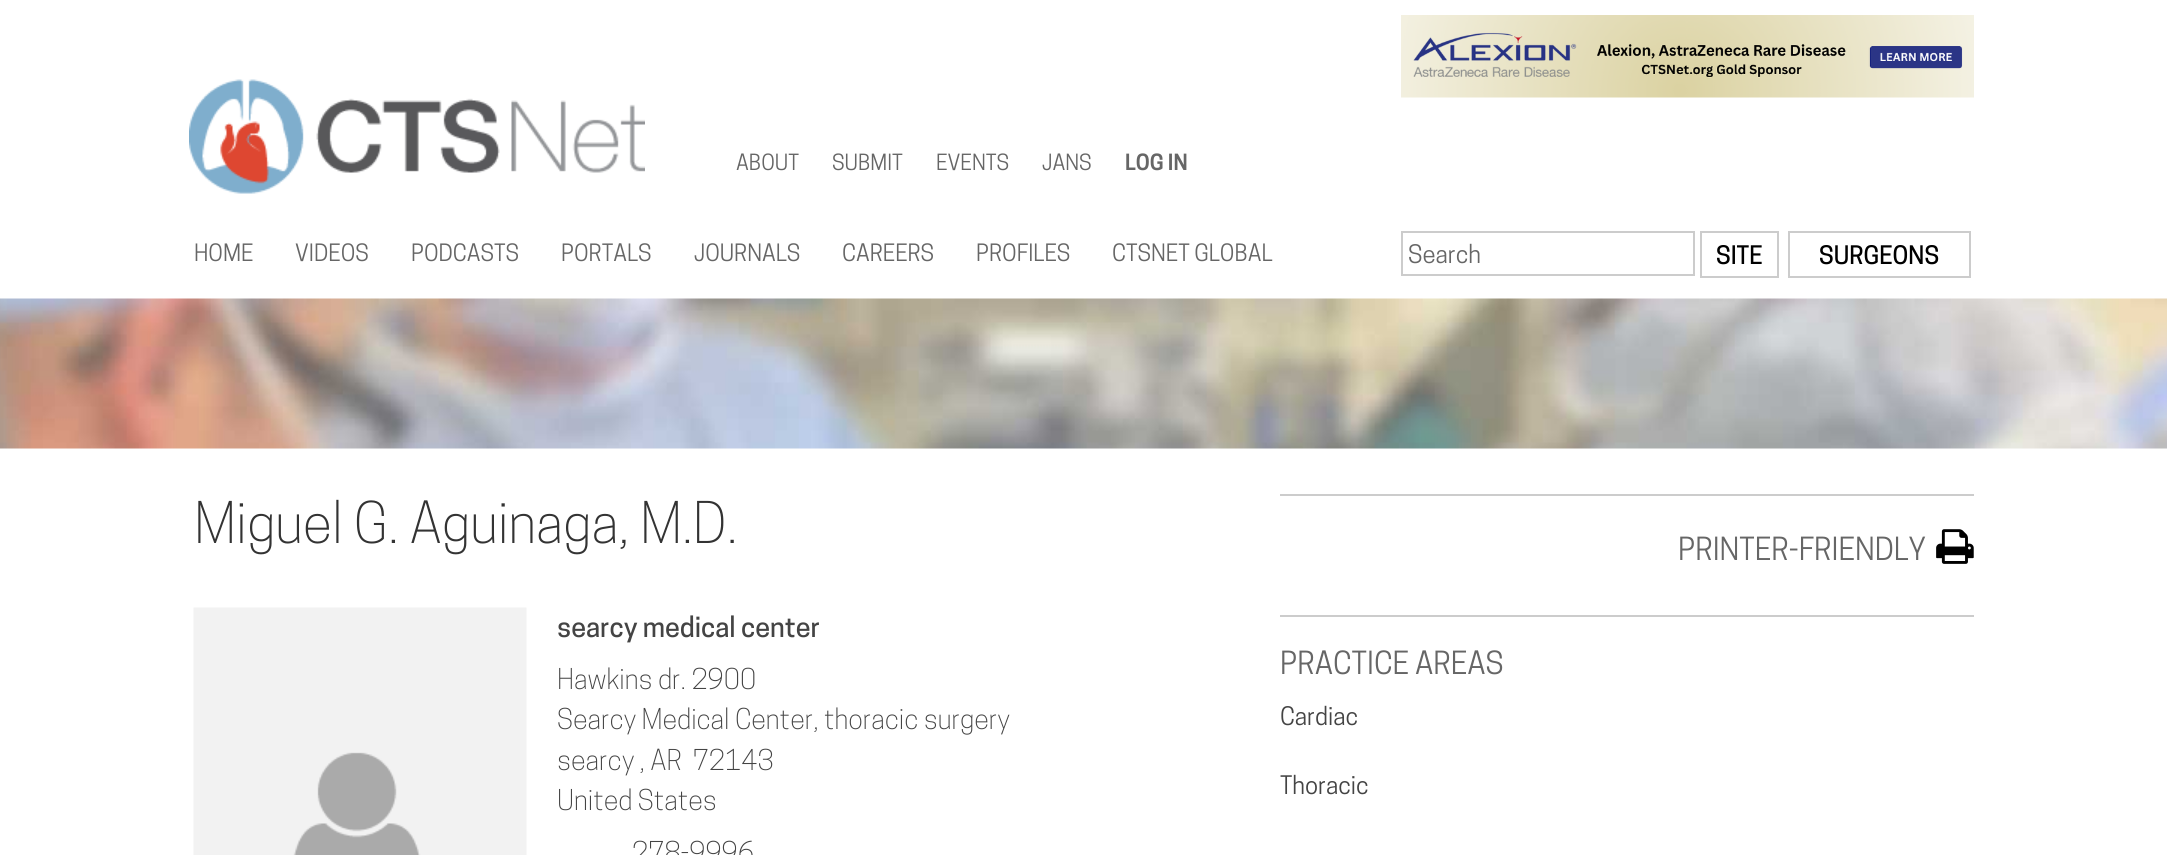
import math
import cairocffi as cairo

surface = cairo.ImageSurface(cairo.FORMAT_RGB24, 2167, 855)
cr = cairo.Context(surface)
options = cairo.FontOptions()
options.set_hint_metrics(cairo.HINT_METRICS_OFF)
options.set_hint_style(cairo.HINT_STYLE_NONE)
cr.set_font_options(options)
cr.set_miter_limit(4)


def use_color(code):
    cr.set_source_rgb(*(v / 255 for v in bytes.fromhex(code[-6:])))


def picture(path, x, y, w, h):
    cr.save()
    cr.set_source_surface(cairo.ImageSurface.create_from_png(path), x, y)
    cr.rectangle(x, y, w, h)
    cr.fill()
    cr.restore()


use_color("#ffffff")
cr.paint()
picture("img1.png", 1401, 15, 573, 83)
picture("img2.png", 189, 79, 456, 115)
cr.select_font_face("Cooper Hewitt")
cr.set_font_size(21)
use_color("#666666")
cr.move_to(736, 170)
cr.show_text("ABOUT")
cr.move_to(832, 170)
cr.show_text("SUBMIT")
cr.move_to(936, 170)
cr.show_text("EVENTS")
cr.move_to(1042, 170)
cr.show_text("JANS")
cr.select_font_face("Cooper Hewitt SemiBold")
cr.move_to(1125, 170)
cr.show_text("LOG IN")
cr.select_font_face("Cooper Hewitt")
cr.set_font_size(22.5)
cr.move_to(194, 261)
cr.show_text("HOME")
cr.move_to(295, 261)
cr.show_text("VIDEOS")
cr.move_to(411, 261)
cr.show_text("PODCASTS")
cr.move_to(561, 261)
cr.show_text("PORTALS")
cr.move_to(694, 261)
cr.show_text("JOURNALS")
cr.move_to(842, 261)
cr.show_text("CAREERS")
cr.move_to(976, 261)
cr.show_text("PROFILES")
cr.move_to(1112, 261)
cr.show_text("CTSNET GLOBAL")
cr.rectangle(1402, 232, 292, 43)
use_color("#cccccc")
cr.stroke()
cr.set_font_size(24)
use_color("#666666")
cr.move_to(1408, 263)
cr.show_text("Search")
cr.rectangle(1701, 232, 77, 45)
use_color("#cccccc")
cr.stroke()
cr.select_font_face("Cooper Hewitt Medium")
use_color("#000000")
cr.move_to(1716, 264)
cr.show_text("SITE")
cr.rectangle(1789, 232, 181, 45)
use_color("#cccccc")
cr.stroke()
use_color("#000000")
cr.move_to(1819, 264)
cr.show_text("SURGEONS")
picture("img3.png", 0, 298, 2167, 151)
cr.select_font_face("Cooper Hewitt Light")
cr.set_font_size(54)
use_color("#333333")
cr.move_to(194, 543)
cr.show_text("Miguel G. Aguinaga, M.D.")
picture("img4.png", 193, 607, 334, 248)
cr.select_font_face("Cooper Hewitt Medium")
cr.set_font_size(27)
use_color("#444444")
cr.move_to(557, 637)
cr.show_text("searcy medical center")
cr.select_font_face("Cooper Hewitt Light")
cr.move_to(557, 689)
cr.show_text("Hawkins dr. 2900")
cr.move_to(557, 729)
cr.show_text("Searcy Medical Center, thoracic surgery")
cr.move_to(557, 770)
cr.show_text("searcy , AR  72143")
cr.move_to(557, 810)
cr.show_text("United States")
cr.move_to(632, 862)
cr.show_text("278-9996")
use_color("#cccccc")
cr.rectangle(1280, 494, 694, 2)
cr.fill()
cr.rectangle(1280, 615, 694, 2)
cr.fill()
cr.select_font_face("Cooper Hewitt")
cr.set_font_size(30)
use_color("#666666")
cr.move_to(1678, 560)
cr.show_text("PRINTER-FRIENDLY")
picture("img5.png", 1936, 529, 38, 35)
cr.move_to(1280, 674)
cr.show_text("PRACTICE AREAS")
cr.set_font_size(24)
use_color("#444444")
cr.move_to(1280, 725)
cr.show_text("Cardiac")
cr.move_to(1280, 794)
cr.show_text("Thoracic")
surface.write_to_png("result.png")
